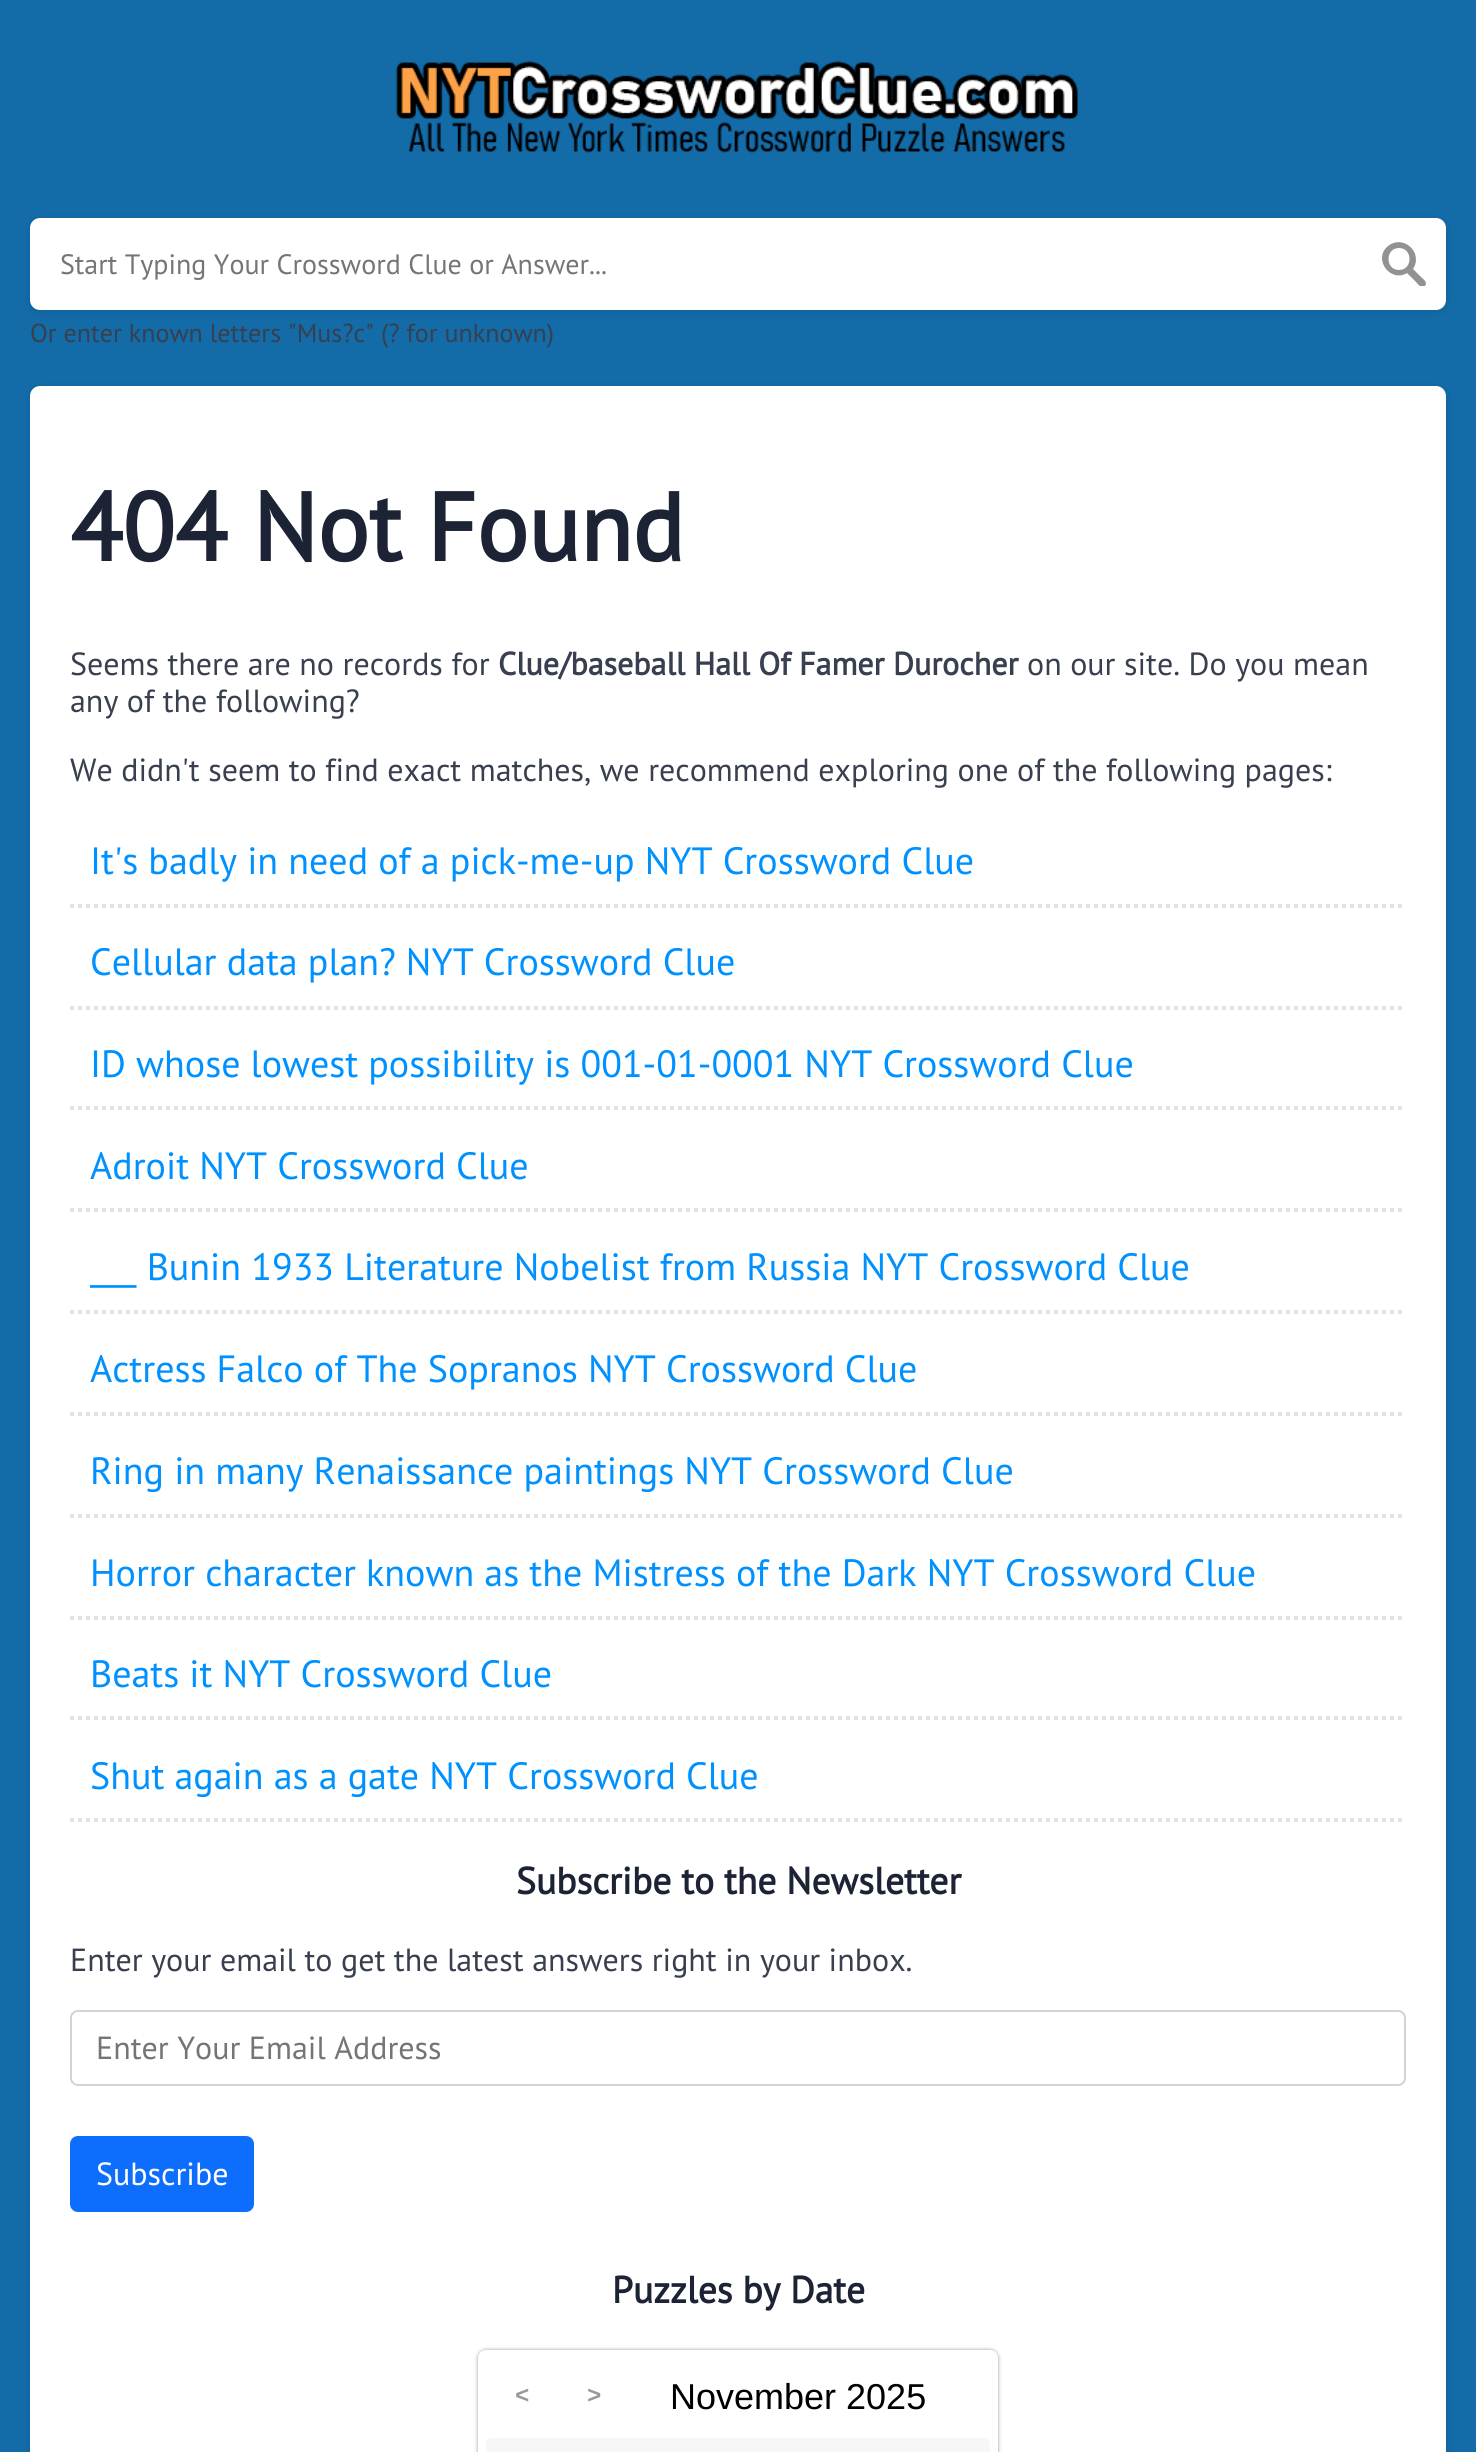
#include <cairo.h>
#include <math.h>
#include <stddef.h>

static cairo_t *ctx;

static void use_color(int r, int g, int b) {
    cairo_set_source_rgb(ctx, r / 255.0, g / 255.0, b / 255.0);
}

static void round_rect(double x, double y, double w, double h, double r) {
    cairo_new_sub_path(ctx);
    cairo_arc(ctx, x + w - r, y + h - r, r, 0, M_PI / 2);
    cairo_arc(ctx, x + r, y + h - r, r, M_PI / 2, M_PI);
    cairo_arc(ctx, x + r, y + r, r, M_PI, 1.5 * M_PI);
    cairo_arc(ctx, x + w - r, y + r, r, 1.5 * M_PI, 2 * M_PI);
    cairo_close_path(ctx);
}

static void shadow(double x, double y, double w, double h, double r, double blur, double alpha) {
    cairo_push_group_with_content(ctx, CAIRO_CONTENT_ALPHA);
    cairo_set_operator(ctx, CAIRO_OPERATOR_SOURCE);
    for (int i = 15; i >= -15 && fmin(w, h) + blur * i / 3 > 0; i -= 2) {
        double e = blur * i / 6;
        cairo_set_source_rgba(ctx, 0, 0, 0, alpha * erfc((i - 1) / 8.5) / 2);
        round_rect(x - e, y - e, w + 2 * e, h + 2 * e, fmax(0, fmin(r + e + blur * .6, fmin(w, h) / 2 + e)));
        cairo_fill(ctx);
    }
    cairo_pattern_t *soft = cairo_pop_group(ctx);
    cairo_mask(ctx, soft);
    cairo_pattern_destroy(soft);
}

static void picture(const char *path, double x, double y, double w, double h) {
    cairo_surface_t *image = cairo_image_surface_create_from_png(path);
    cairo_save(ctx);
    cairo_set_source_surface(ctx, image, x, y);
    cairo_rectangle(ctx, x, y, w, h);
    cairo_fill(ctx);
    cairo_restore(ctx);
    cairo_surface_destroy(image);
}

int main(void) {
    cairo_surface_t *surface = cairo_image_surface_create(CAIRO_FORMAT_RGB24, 1476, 2452);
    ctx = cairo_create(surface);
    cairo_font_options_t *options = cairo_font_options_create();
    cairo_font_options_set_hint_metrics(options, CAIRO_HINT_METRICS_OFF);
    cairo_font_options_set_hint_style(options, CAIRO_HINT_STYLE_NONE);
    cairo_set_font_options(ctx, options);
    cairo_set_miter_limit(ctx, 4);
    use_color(19, 107, 168);
    cairo_paint(ctx);
    picture("img1.png", 395, 61, 683, 92);
    use_color(0, 0, 0);
    shadow(30, 220, 1416, 92, 10, 4, 0.1);
    use_color(255, 255, 255);
    round_rect(30, 218, 1416, 92, 10);
    cairo_fill(ctx);
    cairo_select_font_face(ctx, "PT Sans", CAIRO_FONT_SLANT_NORMAL, CAIRO_FONT_WEIGHT_NORMAL);
    cairo_set_font_size(ctx, 28);
    use_color(117, 117, 117);
    cairo_move_to(ctx, 60, 274);
    cairo_show_text(ctx, "Start Typing Your Crossword Clue or Answer...");
    cairo_save(ctx);
    cairo_rectangle(ctx, 1382, 242, 44, 44);
    cairo_clip(ctx);
    use_color(146, 146, 146);
    cairo_new_path(ctx);
    cairo_move_to(ctx, 1413, 269);
    cairo_curve_to(ctx, 1424, 252, 1402, 233, 1387, 247);
    cairo_curve_to(ctx, 1373, 260, 1391, 283, 1407, 273);
    cairo_line_to(ctx, 1416, 282);
    cairo_curve_to(ctx, 1418, 284, 1421, 289, 1425, 286);
    cairo_curve_to(ctx, 1428, 282, 1423, 279, 1421, 277);
    cairo_close_path(ctx);
    cairo_move_to(ctx, 1399, 270);
    cairo_curve_to(ctx, 1385, 270, 1385, 248, 1399, 248);
    cairo_curve_to(ctx, 1413, 248, 1413, 270, 1399, 270);
    cairo_close_path(ctx);
    cairo_fill(ctx);
    cairo_restore(ctx);
    cairo_set_font_size(ctx, 26);
    use_color(56, 63, 78);
    cairo_move_to(ctx, 30, 342);
    cairo_show_text(ctx, "Or enter known letters \"Mus?c\" (? for unknown)");
    use_color(0, 0, 0);
    shadow(30, 388, 1416, 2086, 10, 4, 0.1);
    use_color(255, 255, 255);
    round_rect(30, 386, 1416, 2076, 10);
    cairo_fill(ctx);
    cairo_select_font_face(ctx, "PT Sans", CAIRO_FONT_SLANT_NORMAL, CAIRO_FONT_WEIGHT_BOLD);
    cairo_set_font_size(ctx, 96);
    use_color(28, 35, 52);
    cairo_move_to(ctx, 70, 561);
    cairo_show_text(ctx, "404 Not Found");
    cairo_select_font_face(ctx, "PT Sans", CAIRO_FONT_SLANT_NORMAL, CAIRO_FONT_WEIGHT_NORMAL);
    cairo_set_font_size(ctx, 32);
    use_color(56, 63, 78);
    cairo_move_to(ctx, 70, 675);
    cairo_show_text(ctx, "Seems there are no records for");
    cairo_select_font_face(ctx, "PT Sans", CAIRO_FONT_SLANT_NORMAL, CAIRO_FONT_WEIGHT_BOLD);
    cairo_move_to(ctx, 498, 675);
    cairo_show_text(ctx, "Clue/baseball Hall Of Famer Durocher");
    cairo_select_font_face(ctx, "PT Sans", CAIRO_FONT_SLANT_NORMAL, CAIRO_FONT_WEIGHT_NORMAL);
    cairo_move_to(ctx, 1027, 675);
    cairo_show_text(ctx, "on our site. Do you mean");
    cairo_move_to(ctx, 70, 712);
    cairo_show_text(ctx, "any of the following?");
    cairo_move_to(ctx, 70, 781);
    cairo_show_text(ctx, "We didn't seem to find exact matches, we recommend exploring one of the following pages:");
    cairo_new_path(ctx);
    cairo_move_to(ctx, 70, 906);
    cairo_line_to(ctx, 1406, 906);
    use_color(226, 226, 226);
    cairo_set_line_width(ctx, 4);
    cairo_set_dash(ctx, (double[]){4, 4}, 2, 0);
    cairo_stroke(ctx);
    cairo_set_font_size(ctx, 38);
    use_color(0, 145, 255);
    cairo_move_to(ctx, 90, 874);
    cairo_show_text(ctx, "It's badly in need of a pick-me-up NYT Crossword Clue");
    cairo_new_path(ctx);
    cairo_move_to(ctx, 70, 1008);
    cairo_line_to(ctx, 1406, 1008);
    use_color(226, 226, 226);
    cairo_stroke(ctx);
    use_color(0, 145, 255);
    cairo_move_to(ctx, 90, 975);
    cairo_show_text(ctx, "Cellular data plan? NYT Crossword Clue");
    cairo_new_path(ctx);
    cairo_move_to(ctx, 70, 1108);
    cairo_line_to(ctx, 1406, 1108);
    use_color(226, 226, 226);
    cairo_stroke(ctx);
    use_color(0, 145, 255);
    cairo_move_to(ctx, 90, 1077);
    cairo_show_text(ctx, "ID whose lowest possibility is 001-01-0001 NYT Crossword Clue");
    cairo_new_path(ctx);
    cairo_move_to(ctx, 70, 1210);
    cairo_line_to(ctx, 1406, 1210);
    use_color(226, 226, 226);
    cairo_stroke(ctx);
    use_color(0, 145, 255);
    cairo_move_to(ctx, 90, 1179);
    cairo_show_text(ctx, "Adroit NYT Crossword Clue");
    cairo_new_path(ctx);
    cairo_move_to(ctx, 70, 1312);
    cairo_line_to(ctx, 1406, 1312);
    use_color(226, 226, 226);
    cairo_stroke(ctx);
    use_color(0, 145, 255);
    cairo_move_to(ctx, 90, 1280);
    cairo_show_text(ctx, "___ Bunin 1933 Literature Nobelist from Russia NYT Crossword Clue");
    cairo_new_path(ctx);
    cairo_move_to(ctx, 70, 1414);
    cairo_line_to(ctx, 1406, 1414);
    use_color(226, 226, 226);
    cairo_stroke(ctx);
    use_color(0, 145, 255);
    cairo_move_to(ctx, 90, 1382);
    cairo_show_text(ctx, "Actress Falco of The Sopranos NYT Crossword Clue");
    cairo_new_path(ctx);
    cairo_move_to(ctx, 70, 1516);
    cairo_line_to(ctx, 1406, 1516);
    use_color(226, 226, 226);
    cairo_stroke(ctx);
    use_color(0, 145, 255);
    cairo_move_to(ctx, 90, 1484);
    cairo_show_text(ctx, "Ring in many Renaissance paintings NYT Crossword Clue");
    cairo_new_path(ctx);
    cairo_move_to(ctx, 70, 1618);
    cairo_line_to(ctx, 1406, 1618);
    use_color(226, 226, 226);
    cairo_stroke(ctx);
    use_color(0, 145, 255);
    cairo_move_to(ctx, 90, 1586);
    cairo_show_text(ctx, "Horror character known as the Mistress of the Dark NYT Crossword Clue");
    cairo_new_path(ctx);
    cairo_move_to(ctx, 70, 1718);
    cairo_line_to(ctx, 1406, 1718);
    use_color(226, 226, 226);
    cairo_stroke(ctx);
    use_color(0, 145, 255);
    cairo_move_to(ctx, 90, 1687);
    cairo_show_text(ctx, "Beats it NYT Crossword Clue");
    cairo_new_path(ctx);
    cairo_move_to(ctx, 70, 1820);
    cairo_line_to(ctx, 1406, 1820);
    use_color(226, 226, 226);
    cairo_stroke(ctx);
    use_color(0, 145, 255);
    cairo_move_to(ctx, 90, 1789);
    cairo_show_text(ctx, "Shut again as a gate NYT Crossword Clue");
    cairo_select_font_face(ctx, "PT Sans", CAIRO_FONT_SLANT_NORMAL, CAIRO_FONT_WEIGHT_BOLD);
    cairo_set_font_size(ctx, 37.5);
    use_color(28, 35, 52);
    cairo_move_to(ctx, 516, 1894);
    cairo_show_text(ctx, "Subscribe to the Newsletter");
    cairo_select_font_face(ctx, "PT Sans", CAIRO_FONT_SLANT_NORMAL, CAIRO_FONT_WEIGHT_NORMAL);
    cairo_set_font_size(ctx, 32);
    use_color(56, 63, 78);
    cairo_move_to(ctx, 70, 1971);
    cairo_show_text(ctx, "Enter your email to get the latest answers right in your inbox.");
    round_rect(71, 2011, 1334, 74, 7);
    use_color(206, 212, 218);
    cairo_set_line_width(ctx, 2);
    cairo_set_dash(ctx, NULL, 0, 0);
    cairo_stroke(ctx);
    use_color(117, 117, 117);
    cairo_move_to(ctx, 96, 2059);
    cairo_show_text(ctx, "Enter Your Email Address");
    use_color(13, 110, 253);
    round_rect(71, 2137, 182, 74, 7);
    cairo_fill_preserve(ctx);
    cairo_stroke(ctx);
    use_color(255, 255, 255);
    cairo_move_to(ctx, 96, 2185);
    cairo_show_text(ctx, "Subscribe");
    cairo_select_font_face(ctx, "PT Sans", CAIRO_FONT_SLANT_NORMAL, CAIRO_FONT_WEIGHT_BOLD);
    cairo_set_font_size(ctx, 37.5);
    use_color(28, 35, 52);
    cairo_move_to(ctx, 612, 2303);
    cairo_show_text(ctx, "Puzzles by Date");
    use_color(0, 0, 0);
    shadow(478, 2350, 520, 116, 8, 2, 0.4);
    use_color(255, 255, 255);
    round_rect(478, 2350, 520, 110, 8);
    cairo_fill(ctx);
    cairo_select_font_face(ctx, "Liberation Mono", CAIRO_FONT_SLANT_NORMAL, CAIRO_FONT_WEIGHT_BOLD);
    cairo_set_font_size(ctx, 24);
    use_color(153, 153, 153);
    cairo_move_to(ctx, 515, 2403);
    cairo_show_text(ctx, "<");
    cairo_move_to(ctx, 587, 2403);
    cairo_show_text(ctx, ">");
    cairo_select_font_face(ctx, "Liberation Sans", CAIRO_FONT_SLANT_NORMAL, CAIRO_FONT_WEIGHT_NORMAL);
    cairo_set_font_size(ctx, 36);
    use_color(0, 0, 0);
    cairo_move_to(ctx, 670, 2409);
    cairo_show_text(ctx, "November 2025");
    use_color(246, 247, 248);
    round_rect(486, 2438, 504, 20, 6);
    cairo_fill(ctx);
    cairo_surface_write_to_png(surface, "result.png");
    cairo_font_options_destroy(options);
    cairo_destroy(ctx);
    cairo_surface_destroy(surface);
    return 0;
}
